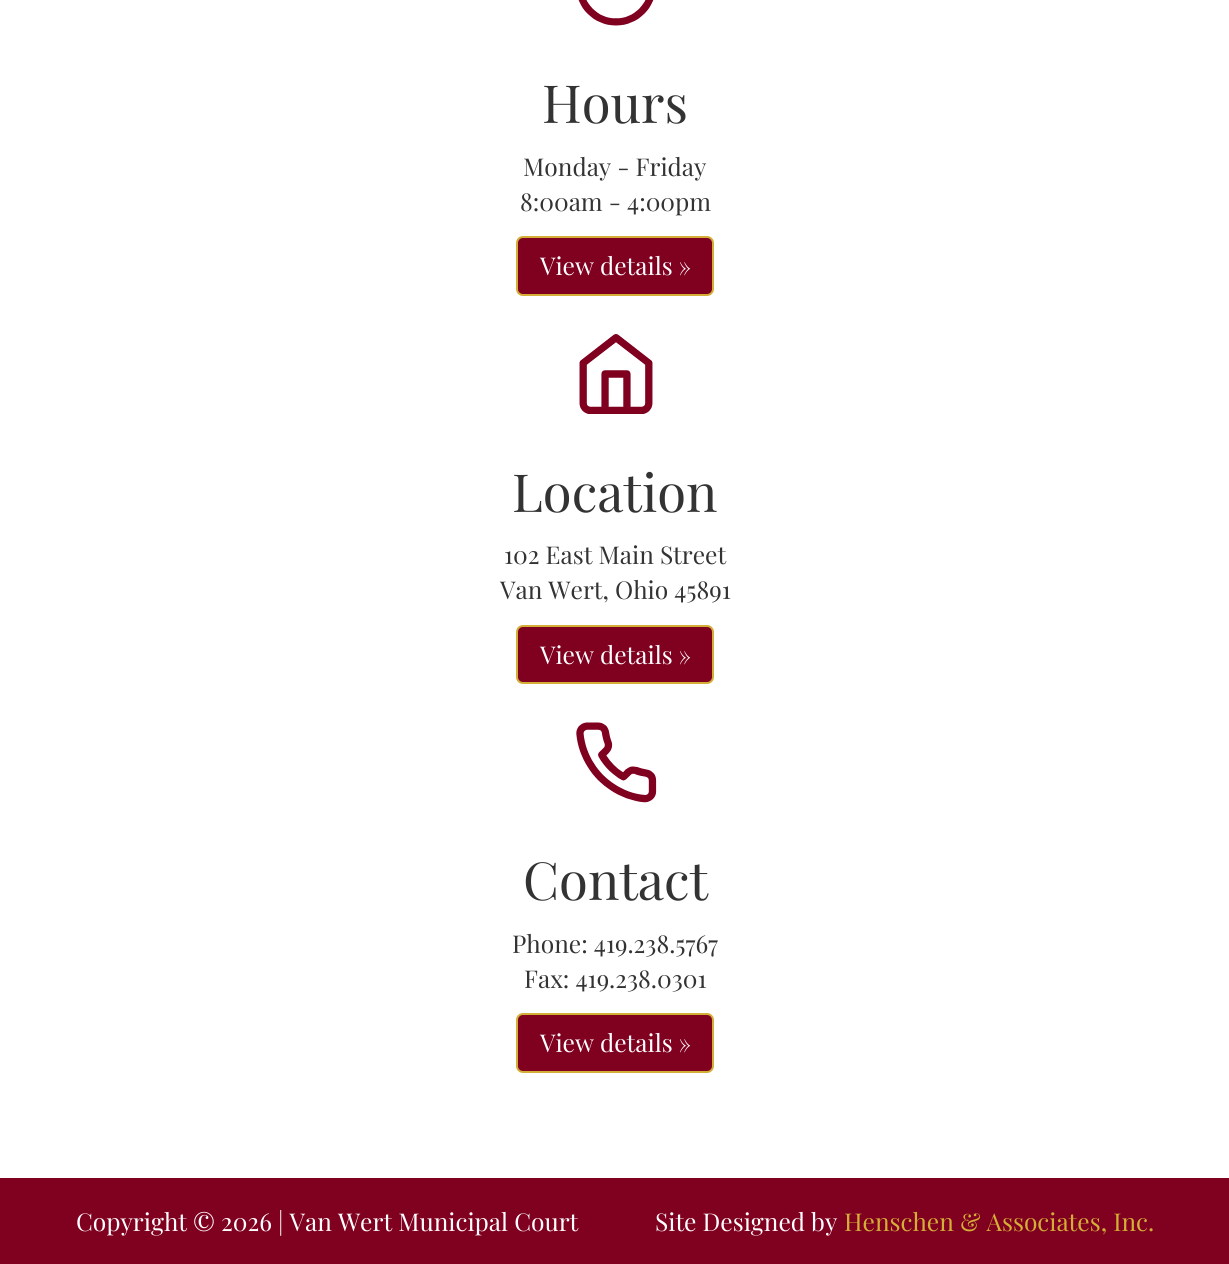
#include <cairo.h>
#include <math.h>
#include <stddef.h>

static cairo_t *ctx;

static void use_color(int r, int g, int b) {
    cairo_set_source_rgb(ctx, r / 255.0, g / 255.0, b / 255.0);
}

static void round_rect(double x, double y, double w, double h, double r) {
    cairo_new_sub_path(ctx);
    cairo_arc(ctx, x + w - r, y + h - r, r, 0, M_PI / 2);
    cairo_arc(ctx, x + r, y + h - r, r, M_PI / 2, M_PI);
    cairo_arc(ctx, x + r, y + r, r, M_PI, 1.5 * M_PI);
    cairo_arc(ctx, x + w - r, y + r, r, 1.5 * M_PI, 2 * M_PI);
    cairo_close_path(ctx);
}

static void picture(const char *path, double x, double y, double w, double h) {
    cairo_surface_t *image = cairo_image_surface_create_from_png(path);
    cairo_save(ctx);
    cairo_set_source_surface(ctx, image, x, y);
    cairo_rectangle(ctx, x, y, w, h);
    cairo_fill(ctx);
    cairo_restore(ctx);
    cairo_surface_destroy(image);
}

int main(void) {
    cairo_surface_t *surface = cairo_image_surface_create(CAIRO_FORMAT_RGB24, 1229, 1264);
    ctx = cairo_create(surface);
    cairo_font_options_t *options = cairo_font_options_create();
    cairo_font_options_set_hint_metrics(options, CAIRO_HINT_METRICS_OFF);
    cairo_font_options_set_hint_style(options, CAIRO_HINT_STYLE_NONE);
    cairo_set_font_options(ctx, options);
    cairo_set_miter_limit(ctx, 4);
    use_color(255, 255, 255);
    cairo_paint(ctx);
    picture("img1.png", 578, 0, 76, 26);
    cairo_select_font_face(ctx, "Playfair Display", CAIRO_FONT_SLANT_NORMAL, CAIRO_FONT_WEIGHT_NORMAL);
    cairo_set_font_size(ctx, 52.5);
    use_color(51, 51, 51);
    cairo_move_to(ctx, 542, 123);
    cairo_show_text(ctx, "Hours");
    cairo_set_font_size(ctx, 24.5);
    cairo_move_to(ctx, 523, 176);
    cairo_show_text(ctx, "Monday - Friday");
    cairo_move_to(ctx, 520, 211);
    cairo_show_text(ctx, "8:00am - 4:00pm");
    use_color(128, 0, 32);
    round_rect(517, 237, 196, 58, 6);
    cairo_fill_preserve(ctx);
    use_color(212, 175, 55);
    cairo_stroke(ctx);
    use_color(255, 255, 255);
    cairo_move_to(ctx, 540, 275);
    cairo_show_text(ctx, "View details »");
    picture("img2.png", 579, 334, 74, 80);
    cairo_set_font_size(ctx, 52.5);
    use_color(51, 51, 51);
    cairo_move_to(ctx, 512, 512);
    cairo_show_text(ctx, "Location");
    cairo_set_font_size(ctx, 24.5);
    cairo_move_to(ctx, 504, 564);
    cairo_show_text(ctx, "102 East Main Street");
    cairo_move_to(ctx, 500, 599);
    cairo_show_text(ctx, "Van Wert, Ohio 45891");
    use_color(128, 0, 32);
    round_rect(517, 626, 196, 57, 6);
    cairo_fill_preserve(ctx);
    use_color(212, 175, 55);
    cairo_stroke(ctx);
    use_color(255, 255, 255);
    cairo_move_to(ctx, 540, 664);
    cairo_show_text(ctx, "View details »");
    picture("img3.png", 576, 722, 81, 81);
    cairo_set_font_size(ctx, 52.5);
    use_color(51, 51, 51);
    cairo_move_to(ctx, 523, 900);
    cairo_show_text(ctx, "Contact");
    cairo_set_font_size(ctx, 24.5);
    cairo_move_to(ctx, 512, 953);
    cairo_show_text(ctx, "Phone: 419.238.5767");
    cairo_move_to(ctx, 524, 988);
    cairo_show_text(ctx, "Fax: 419.238.0301");
    use_color(128, 0, 32);
    round_rect(517, 1014, 196, 58, 6);
    cairo_fill_preserve(ctx);
    use_color(212, 175, 55);
    cairo_stroke(ctx);
    use_color(255, 255, 255);
    cairo_move_to(ctx, 540, 1052);
    cairo_show_text(ctx, "View details »");
    use_color(128, 0, 32);
    cairo_rectangle(ctx, 0, 1178, 1229, 86);
    cairo_fill(ctx);
    use_color(255, 255, 255);
    cairo_move_to(ctx, 76, 1231);
    cairo_show_text(ctx, "Copyright © 2026 | Van Wert Municipal Court");
    cairo_move_to(ctx, 655, 1231);
    cairo_show_text(ctx, "Site Designed by");
    use_color(212, 175, 55);
    cairo_move_to(ctx, 844, 1231);
    cairo_show_text(ctx, "Henschen & Associates, Inc.");
    cairo_surface_write_to_png(surface, "result.png");
    cairo_font_options_destroy(options);
    cairo_destroy(ctx);
    cairo_surface_destroy(surface);
    return 0;
}
